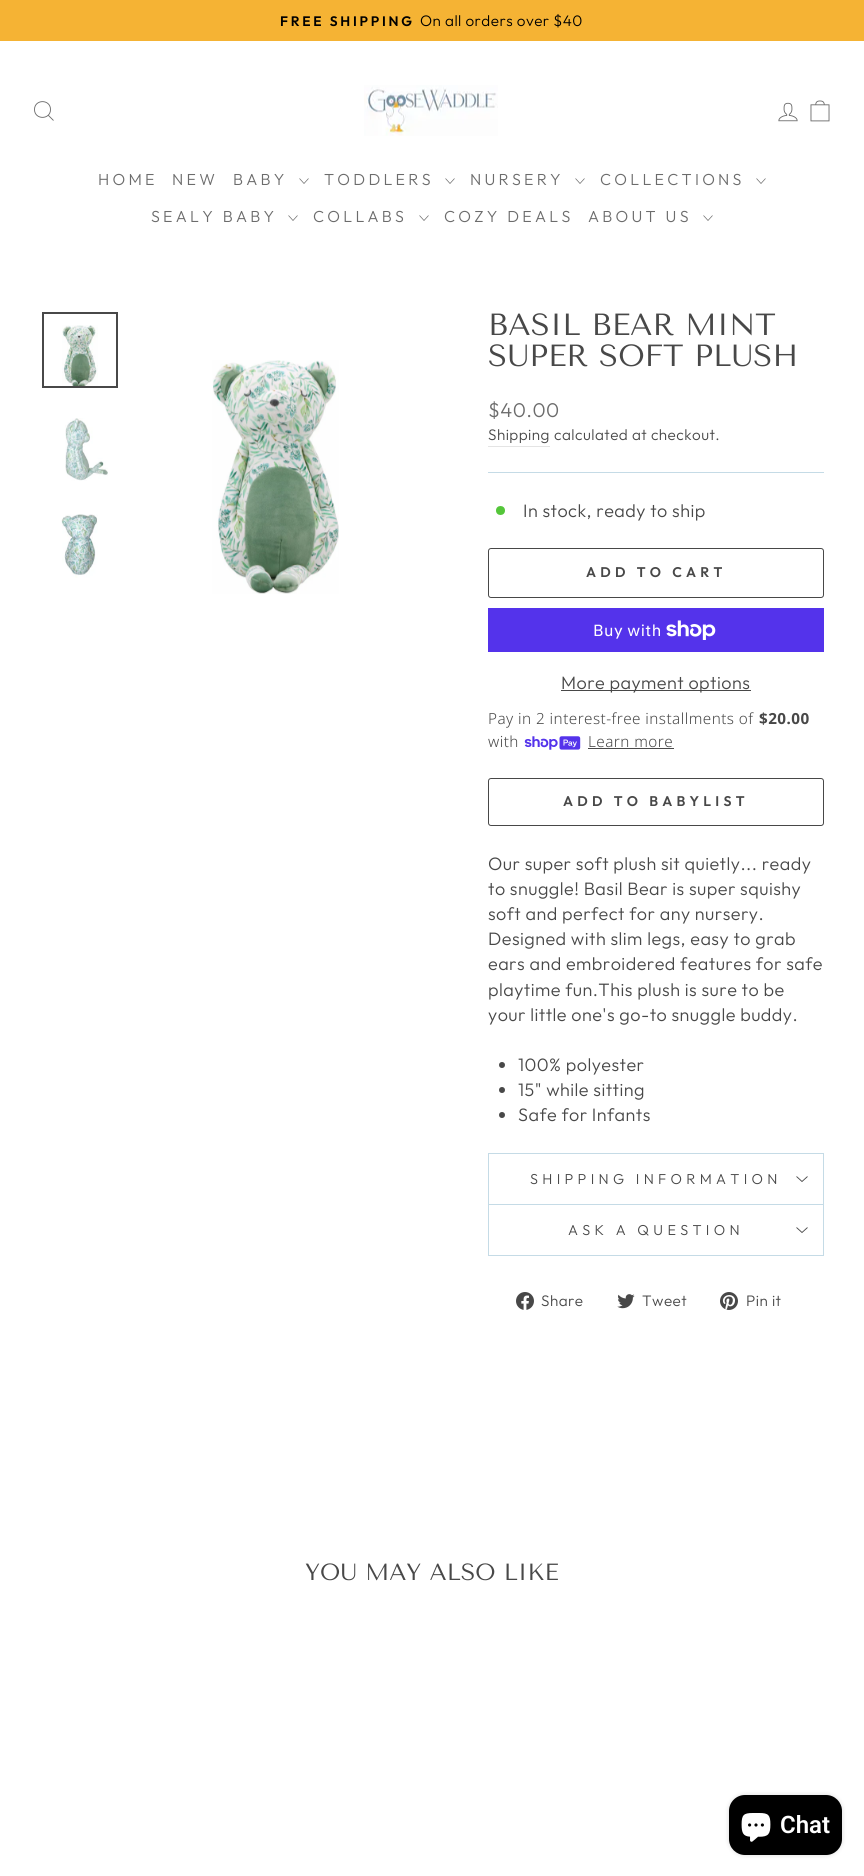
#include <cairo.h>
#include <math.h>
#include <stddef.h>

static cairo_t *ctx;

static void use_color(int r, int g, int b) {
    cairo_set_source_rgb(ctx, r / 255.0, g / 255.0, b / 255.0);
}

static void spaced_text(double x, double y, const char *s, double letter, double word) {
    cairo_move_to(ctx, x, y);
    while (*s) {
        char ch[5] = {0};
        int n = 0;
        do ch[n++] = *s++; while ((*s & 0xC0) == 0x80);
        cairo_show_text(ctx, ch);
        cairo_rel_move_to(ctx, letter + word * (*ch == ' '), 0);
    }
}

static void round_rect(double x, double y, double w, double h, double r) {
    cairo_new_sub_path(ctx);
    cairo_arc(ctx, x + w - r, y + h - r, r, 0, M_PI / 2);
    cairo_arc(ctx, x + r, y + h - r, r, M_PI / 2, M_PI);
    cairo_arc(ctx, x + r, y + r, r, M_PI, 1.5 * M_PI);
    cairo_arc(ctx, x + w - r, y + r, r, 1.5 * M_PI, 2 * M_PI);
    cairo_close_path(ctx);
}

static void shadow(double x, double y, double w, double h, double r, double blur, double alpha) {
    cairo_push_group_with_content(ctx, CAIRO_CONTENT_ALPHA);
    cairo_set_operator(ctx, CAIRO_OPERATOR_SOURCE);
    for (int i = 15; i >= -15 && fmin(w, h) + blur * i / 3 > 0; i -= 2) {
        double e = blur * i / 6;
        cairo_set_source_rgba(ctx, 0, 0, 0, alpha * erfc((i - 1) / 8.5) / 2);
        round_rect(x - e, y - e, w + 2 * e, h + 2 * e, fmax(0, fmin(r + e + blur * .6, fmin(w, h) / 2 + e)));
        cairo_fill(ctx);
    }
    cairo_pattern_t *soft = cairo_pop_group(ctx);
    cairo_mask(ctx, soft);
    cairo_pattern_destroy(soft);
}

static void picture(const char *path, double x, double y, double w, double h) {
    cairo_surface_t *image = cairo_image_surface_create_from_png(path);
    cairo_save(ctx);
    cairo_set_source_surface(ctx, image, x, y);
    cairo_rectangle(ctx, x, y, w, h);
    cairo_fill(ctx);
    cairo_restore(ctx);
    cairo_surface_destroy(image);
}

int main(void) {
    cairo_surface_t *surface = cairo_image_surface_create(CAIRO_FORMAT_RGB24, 864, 1876);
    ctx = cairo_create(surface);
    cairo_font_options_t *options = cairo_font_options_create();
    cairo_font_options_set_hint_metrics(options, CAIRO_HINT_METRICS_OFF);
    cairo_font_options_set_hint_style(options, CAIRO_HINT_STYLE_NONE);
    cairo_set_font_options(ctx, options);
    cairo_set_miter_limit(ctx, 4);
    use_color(255, 255, 255);
    cairo_paint(ctx);
    use_color(245, 179, 52);
    cairo_rectangle(ctx, 0, 0, 864, 41);
    cairo_fill(ctx);
    cairo_select_font_face(ctx, "Outfit SemiBold", CAIRO_FONT_SLANT_NORMAL, CAIRO_FONT_WEIGHT_NORMAL);
    cairo_set_font_size(ctx, 13.75);
    use_color(0, 0, 0);
    spaced_text(280, 26, "FREE SHIPPING", 2.75, 0);
    cairo_select_font_face(ctx, "Outfit Light", CAIRO_FONT_SLANT_NORMAL, CAIRO_FONT_WEIGHT_NORMAL);
    cairo_set_font_size(ctx, 15.25);
    spaced_text(420, 26, "On all orders over $40", 0.45, 0);
    cairo_new_path(ctx);
    cairo_move_to(ctx, 50.5, 109.5);
    cairo_curve_to(ctx, 50.5, 120, 34.5, 120, 34.5, 109.5);
    cairo_curve_to(ctx, 34.5, 99, 50.5, 99, 50.5, 109.5);
    cairo_close_path(ctx);
    cairo_move_to(ctx, 53.5, 120.5);
    cairo_line_to(ctx, 48.5, 115.5);
    use_color(108, 108, 108);
    cairo_set_line_width(ctx, 0.9);
    cairo_stroke(ctx);
    picture("img1.png", 364, 85, 134, 51);
    picture("img2.png", 778, 102, 20, 20);
    picture("img3.png", 810, 100, 20, 22);
    cairo_set_font_size(ctx, 16);
    spaced_text(98, 185, "HOME", 3.25, 0);
    spaced_text(172, 185, "NEW", 3.25, 0);
    spaced_text(233, 185, "BABY", 3.25, 0);
    cairo_new_path(ctx);
    cairo_move_to(ctx, 299.5, 178.5);
    cairo_line_to(ctx, 304, 183.5);
    cairo_line_to(ctx, 308.5, 178.5);
    cairo_set_line_width(ctx, 0.7);
    cairo_stroke(ctx);
    spaced_text(324, 185, "TODDLERS", 3.25, 0);
    cairo_new_path(ctx);
    cairo_move_to(ctx, 445.5, 178.5);
    cairo_line_to(ctx, 450, 183.5);
    cairo_line_to(ctx, 454.5, 178.5);
    cairo_stroke(ctx);
    spaced_text(470, 185, "NURSERY", 3.25, 0);
    cairo_new_path(ctx);
    cairo_move_to(ctx, 575.5, 178.5);
    cairo_line_to(ctx, 580, 183.5);
    cairo_line_to(ctx, 584.5, 178.5);
    cairo_stroke(ctx);
    spaced_text(600, 185, "COLLECTIONS", 3.25, 0);
    cairo_new_path(ctx);
    cairo_move_to(ctx, 756.5, 178.5);
    cairo_line_to(ctx, 761, 183.5);
    cairo_line_to(ctx, 765.5, 178.5);
    cairo_stroke(ctx);
    spaced_text(151, 222, "SEALY BABY", 3.25, 0);
    cairo_new_path(ctx);
    cairo_move_to(ctx, 288.5, 215.5);
    cairo_line_to(ctx, 293, 220.5);
    cairo_line_to(ctx, 297.5, 215.5);
    cairo_stroke(ctx);
    spaced_text(313, 222, "COLLABS", 3.25, 0);
    cairo_new_path(ctx);
    cairo_move_to(ctx, 419.5, 215.5);
    cairo_line_to(ctx, 424, 220.5);
    cairo_line_to(ctx, 428.5, 215.5);
    cairo_stroke(ctx);
    spaced_text(444, 222, "COZY DEALS", 3.25, 0);
    spaced_text(588, 222, "ABOUT US", 3.25, 0);
    cairo_new_path(ctx);
    cairo_move_to(ctx, 703.5, 215.5);
    cairo_line_to(ctx, 708, 220.5);
    cairo_line_to(ctx, 712.5, 215.5);
    cairo_stroke(ctx);
    picture("img4.png", 62, 325, 36, 61);
    cairo_rectangle(ctx, 43, 313, 74, 74);
    use_color(72, 72, 72);
    cairo_set_line_width(ctx, 2);
    cairo_stroke(ctx);
    picture("img5.png", 65, 418, 43, 63);
    picture("img6.png", 61, 514, 37, 64);
    picture("img7.png", 212, 360, 127, 234);
    cairo_select_font_face(ctx, "Tenor Sans", CAIRO_FONT_SLANT_NORMAL, CAIRO_FONT_WEIGHT_NORMAL);
    cairo_set_font_size(ctx, 30.6);
    cairo_move_to(ctx, 488, 335);
    cairo_show_text(ctx, "BASIL BEAR MINT");
    cairo_move_to(ctx, 488, 366);
    cairo_show_text(ctx, "SUPER SOFT PLUSH");
    cairo_select_font_face(ctx, "Outfit Light", CAIRO_FONT_SLANT_NORMAL, CAIRO_FONT_WEIGHT_NORMAL);
    cairo_set_font_size(ctx, 20);
    use_color(108, 108, 108);
    spaced_text(488, 417, "$40.00", 0.45, 0);
    use_color(228, 228, 228);
    cairo_rectangle(ctx, 488, 446, 62, 1);
    cairo_fill(ctx);
    cairo_set_font_size(ctx, 15.25);
    use_color(72, 72, 72);
    spaced_text(488, 440, "Shipping", 0.45, 0);
    spaced_text(554, 440, "calculated at checkout.", 0.45, 0);
    use_color(197, 219, 230);
    cairo_rectangle(ctx, 488, 472, 336, 1);
    cairo_fill(ctx);
    use_color(84, 198, 58);
    cairo_arc(ctx, 500.5, 510.5, 4.5, 0, 2 * M_PI);
    cairo_fill(ctx);
    cairo_set_font_size(ctx, 18);
    use_color(72, 72, 72);
    spaced_text(523, 517, "In stock, ready to ship", 0.45, 0);
    round_rect(488.5, 548.5, 335, 49, 2.5);
    cairo_set_line_width(ctx, 1);
    cairo_stroke(ctx);
    cairo_select_font_face(ctx, "Outfit SemiBold", CAIRO_FONT_SLANT_NORMAL, CAIRO_FONT_WEIGHT_NORMAL);
    cairo_set_font_size(ctx, 14);
    spaced_text(586, 577, "ADD TO CART", 4.25, 0);
    use_color(84, 51, 235);
    cairo_rectangle(ctx, 488, 608, 336, 44);
    cairo_fill(ctx);
    cairo_select_font_face(ctx, "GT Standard", CAIRO_FONT_SLANT_NORMAL, CAIRO_FONT_WEIGHT_NORMAL);
    cairo_set_font_size(ctx, 16);
    use_color(255, 255, 255);
    spaced_text(593, 636, "Buy with", 0.45, 0);
    picture("img8.png", 666, 620, 50, 20);
    use_color(72, 72, 72);
    cairo_rectangle(ctx, 561, 690, 190, 1);
    cairo_fill(ctx);
    cairo_select_font_face(ctx, "Outfit Light", CAIRO_FONT_SLANT_NORMAL, CAIRO_FONT_WEIGHT_NORMAL);
    cairo_set_font_size(ctx, 18);
    spaced_text(561, 689, "More payment options", 0.45, 0);
    cairo_select_font_face(ctx, "Noto Sans Light", CAIRO_FONT_SLANT_NORMAL, CAIRO_FONT_WEIGHT_NORMAL);
    cairo_set_font_size(ctx, 15.25);
    spaced_text(488, 724, "Pay in 2 interest-free installments of", 0.45, 0);
    cairo_select_font_face(ctx, "Noto Sans", CAIRO_FONT_SLANT_NORMAL, CAIRO_FONT_WEIGHT_BOLD);
    spaced_text(759, 724, "$20.00", 0.45, 0);
    cairo_select_font_face(ctx, "Noto Sans Light", CAIRO_FONT_SLANT_NORMAL, CAIRO_FONT_WEIGHT_NORMAL);
    spaced_text(488, 747, "with", 0.45, 0);
    picture("img9.png", 524, 736, 57, 14);
    spaced_text(588, 747, "Learn more", 0.45, 0);
    cairo_rectangle(ctx, 588, 748, 86, 1);
    cairo_fill(ctx);
    round_rect(488.5, 778.5, 335, 47, 2.5);
    cairo_stroke(ctx);
    cairo_select_font_face(ctx, "Outfit SemiBold", CAIRO_FONT_SLANT_NORMAL, CAIRO_FONT_WEIGHT_NORMAL);
    cairo_set_font_size(ctx, 14);
    spaced_text(563, 806, "ADD TO BABYLIST", 4.25, 0);
    cairo_select_font_face(ctx, "Outfit Light", CAIRO_FONT_SLANT_NORMAL, CAIRO_FONT_WEIGHT_NORMAL);
    cairo_set_font_size(ctx, 18);
    spaced_text(488, 870, "Our super soft plush sit quietly... ready", 0.45, 0);
    spaced_text(488, 895, "to snuggle! Basil Bear is super squishy", 0.45, 0);
    spaced_text(488, 920, "soft and perfect for any nursery.", 0.45, 0);
    spaced_text(488, 945, "Designed with slim legs, easy to grab", 0.45, 0);
    spaced_text(488, 970, "ears and embroidered features for safe", 0.45, 0);
    spaced_text(488, 996, "playtime fun.This plush is sure to be", 0.45, 0);
    spaced_text(488, 1021, "your little one's go-to snuggle buddy.", 0.45, 0);
    cairo_new_path(ctx);
    cairo_arc(ctx, 502, 1065, 3, 0, 2 * M_PI);
    cairo_fill(ctx);
    spaced_text(518, 1071, "100% polyester", 0.45, 0);
    cairo_new_path(ctx);
    cairo_arc(ctx, 502, 1090, 3, 0, 2 * M_PI);
    cairo_fill(ctx);
    spaced_text(518, 1096, "15\" while sitting", 0.45, 0);
    cairo_new_path(ctx);
    cairo_arc(ctx, 502, 1115, 3, 0, 2 * M_PI);
    cairo_fill(ctx);
    spaced_text(518, 1121, "Safe for Infants", 0.45, 0);
    use_color(197, 219, 230);
    cairo_rectangle(ctx, 488, 1204, 336, 1);
    cairo_fill(ctx);
    cairo_rectangle(ctx, 488, 1153, 336, 1);
    cairo_fill(ctx);
    cairo_rectangle(ctx, 823, 1153, 1, 51);
    cairo_fill(ctx);
    cairo_rectangle(ctx, 488, 1153, 1, 51);
    cairo_fill(ctx);
    cairo_set_font_size(ctx, 14.4);
    use_color(72, 72, 72);
    spaced_text(530, 1184, "SHIPPING INFORMATION", 4.3, 0);
    cairo_new_path(ctx);
    cairo_move_to(ctx, 796.5, 1176.5);
    cairo_line_to(ctx, 802, 1181.5);
    cairo_line_to(ctx, 807.5, 1176.5);
    cairo_set_line_width(ctx, 0.9);
    cairo_stroke(ctx);
    use_color(197, 219, 230);
    cairo_rectangle(ctx, 488, 1255, 336, 1);
    cairo_fill(ctx);
    cairo_rectangle(ctx, 823, 1205, 1, 50);
    cairo_fill(ctx);
    cairo_rectangle(ctx, 488, 1205, 1, 50);
    cairo_fill(ctx);
    use_color(72, 72, 72);
    spaced_text(568, 1235, "ASK A QUESTION", 4.3, 0);
    cairo_new_path(ctx);
    cairo_move_to(ctx, 796.5, 1227.5);
    cairo_line_to(ctx, 802, 1232.5);
    cairo_line_to(ctx, 807.5, 1227.5);
    cairo_stroke(ctx);
    picture("img10.png", 516, 1292, 18, 18);
    cairo_set_font_size(ctx, 15.25);
    spaced_text(541, 1306, "Share", 0.45, 0);
    picture("img11.png", 617, 1294, 18, 15);
    spaced_text(642, 1306, "Tweet", 0.45, 0);
    picture("img12.png", 720, 1292, 18, 18);
    spaced_text(746, 1306, "Pin it", 0.45, 0);
    cairo_select_font_face(ctx, "Tenor Sans", CAIRO_FONT_SLANT_NORMAL, CAIRO_FONT_WEIGHT_NORMAL);
    cairo_set_font_size(ctx, 23.4);
    cairo_move_to(ctx, 305, 1580);
    cairo_show_text(ctx, "YOU MAY ALSO LIKE");
    use_color(0, 0, 0);
    shadow(729, 1795, 113, 60, 16, 2.5, 0.15);
    use_color(0, 0, 0);
    round_rect(729, 1795, 113, 60, 16);
    cairo_fill(ctx);
    picture("img13.png", 741, 1813, 30, 29);
    cairo_select_font_face(ctx, "Roboto SemiBold", CAIRO_FONT_SLANT_NORMAL, CAIRO_FONT_WEIGHT_NORMAL);
    cairo_set_font_size(ctx, 24);
    use_color(255, 255, 255);
    cairo_move_to(ctx, 780, 1833);
    cairo_show_text(ctx, "Chat");
    cairo_surface_write_to_png(surface, "result.png");
    cairo_font_options_destroy(options);
    cairo_destroy(ctx);
    cairo_surface_destroy(surface);
    return 0;
}
